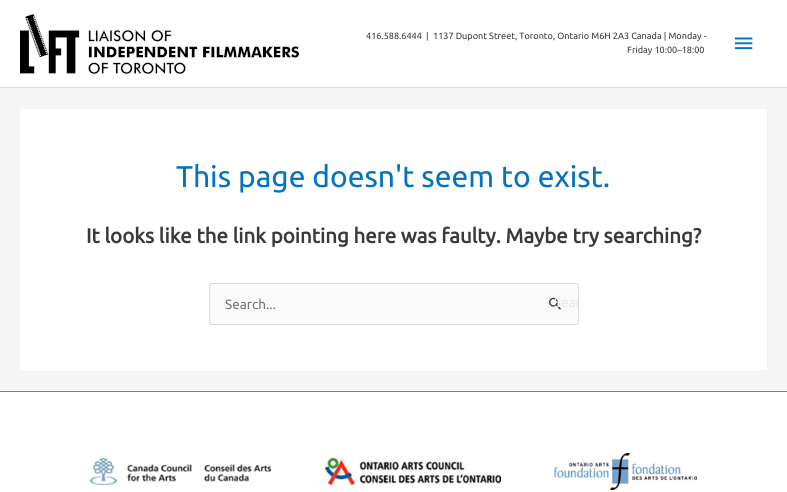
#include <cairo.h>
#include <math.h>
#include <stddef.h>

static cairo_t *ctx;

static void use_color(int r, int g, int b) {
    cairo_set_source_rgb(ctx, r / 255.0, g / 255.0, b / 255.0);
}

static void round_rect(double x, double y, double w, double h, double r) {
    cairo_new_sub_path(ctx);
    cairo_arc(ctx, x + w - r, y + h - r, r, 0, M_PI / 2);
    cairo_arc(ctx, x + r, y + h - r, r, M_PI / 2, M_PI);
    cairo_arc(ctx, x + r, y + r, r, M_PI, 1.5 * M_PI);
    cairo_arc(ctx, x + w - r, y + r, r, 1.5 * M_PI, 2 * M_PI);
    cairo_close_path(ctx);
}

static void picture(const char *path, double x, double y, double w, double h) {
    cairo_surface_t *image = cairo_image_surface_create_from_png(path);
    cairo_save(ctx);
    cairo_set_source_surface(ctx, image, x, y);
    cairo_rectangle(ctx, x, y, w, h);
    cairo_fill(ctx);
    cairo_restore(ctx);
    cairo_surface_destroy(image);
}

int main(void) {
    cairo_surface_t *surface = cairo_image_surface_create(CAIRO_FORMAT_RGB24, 787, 492);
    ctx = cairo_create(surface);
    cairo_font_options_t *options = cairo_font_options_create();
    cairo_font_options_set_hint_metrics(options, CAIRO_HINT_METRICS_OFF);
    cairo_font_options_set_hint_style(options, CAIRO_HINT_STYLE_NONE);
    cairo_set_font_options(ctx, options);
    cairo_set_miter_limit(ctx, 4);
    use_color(245, 245, 245);
    cairo_paint(ctx);
    use_color(255, 255, 255);
    cairo_rectangle(ctx, 0, 0, 787, 87);
    cairo_fill(ctx);
    use_color(221, 221, 221);
    cairo_rectangle(ctx, 0, 87, 787, 1);
    cairo_fill(ctx);
    picture("img1.png", 20, 14, 279, 60);
    cairo_select_font_face(ctx, "Ubuntu", CAIRO_FONT_SLANT_NORMAL, CAIRO_FONT_WEIGHT_NORMAL);
    cairo_set_font_size(ctx, 9.1);
    use_color(58, 58, 58);
    cairo_move_to(ctx, 366, 39);
    cairo_show_text(ctx, "416.588.6444");
    cairo_move_to(ctx, 426, 39);
    cairo_show_text(ctx, "|");
    cairo_move_to(ctx, 433, 39);
    cairo_show_text(ctx, "1137 Dupont Street, Toronto, Ontario M6H 2A3 Canada | Monday -");
    cairo_move_to(ctx, 627, 53);
    cairo_show_text(ctx, "Friday 10:00–18:00");
    picture("img2.png", 734, 37, 19, 13);
    use_color(255, 255, 255);
    cairo_rectangle(ctx, 20, 109, 747, 261);
    cairo_fill(ctx);
    cairo_set_font_size(ctx, 30);
    use_color(2, 116, 190);
    cairo_move_to(ctx, 176, 187);
    cairo_show_text(ctx, "This page doesn't seem to exist.");
    cairo_select_font_face(ctx, "Ubuntu", CAIRO_FONT_SLANT_NORMAL, CAIRO_FONT_WEIGHT_BOLD);
    cairo_set_font_size(ctx, 20.5);
    use_color(58, 58, 58);
    cairo_move_to(ctx, 86, 243);
    cairo_show_text(ctx, "It looks like the link pointing here was faulty. Maybe try searching?");
    use_color(250, 250, 250);
    round_rect(209.5, 283.5, 369, 41, 1.5);
    cairo_fill_preserve(ctx);
    use_color(221, 221, 221);
    cairo_set_line_width(ctx, 1);
    cairo_stroke(ctx);
    picture("img3.png", 549, 297, 12, 13);
    cairo_select_font_face(ctx, "Ubuntu", CAIRO_FONT_SLANT_NORMAL, CAIRO_FONT_WEIGHT_NORMAL);
    cairo_set_font_size(ctx, 13.5);
    use_color(117, 117, 117);
    cairo_move_to(ctx, 225, 309);
    cairo_show_text(ctx, "Search...");
    cairo_save(ctx);
    round_rect(534, 283, 45, 39, 2);
    cairo_clip(ctx);
    use_color(232, 232, 232);
    cairo_move_to(ctx, 554, 307);
    cairo_show_text(ctx, "Sear");
    cairo_restore(ctx);
    use_color(122, 122, 122);
    cairo_rectangle(ctx, 0, 391, 787, 1);
    cairo_fill(ctx);
    use_color(255, 255, 255);
    cairo_rectangle(ctx, 0, 392, 787, 100);
    cairo_fill(ctx);
    picture("img4.png", 90, 458, 181, 27);
    picture("img5.png", 325, 458, 176, 27);
    picture("img6.png", 554, 453, 143, 37);
    cairo_surface_write_to_png(surface, "result.png");
    cairo_font_options_destroy(options);
    cairo_destroy(ctx);
    cairo_surface_destroy(surface);
    return 0;
}
